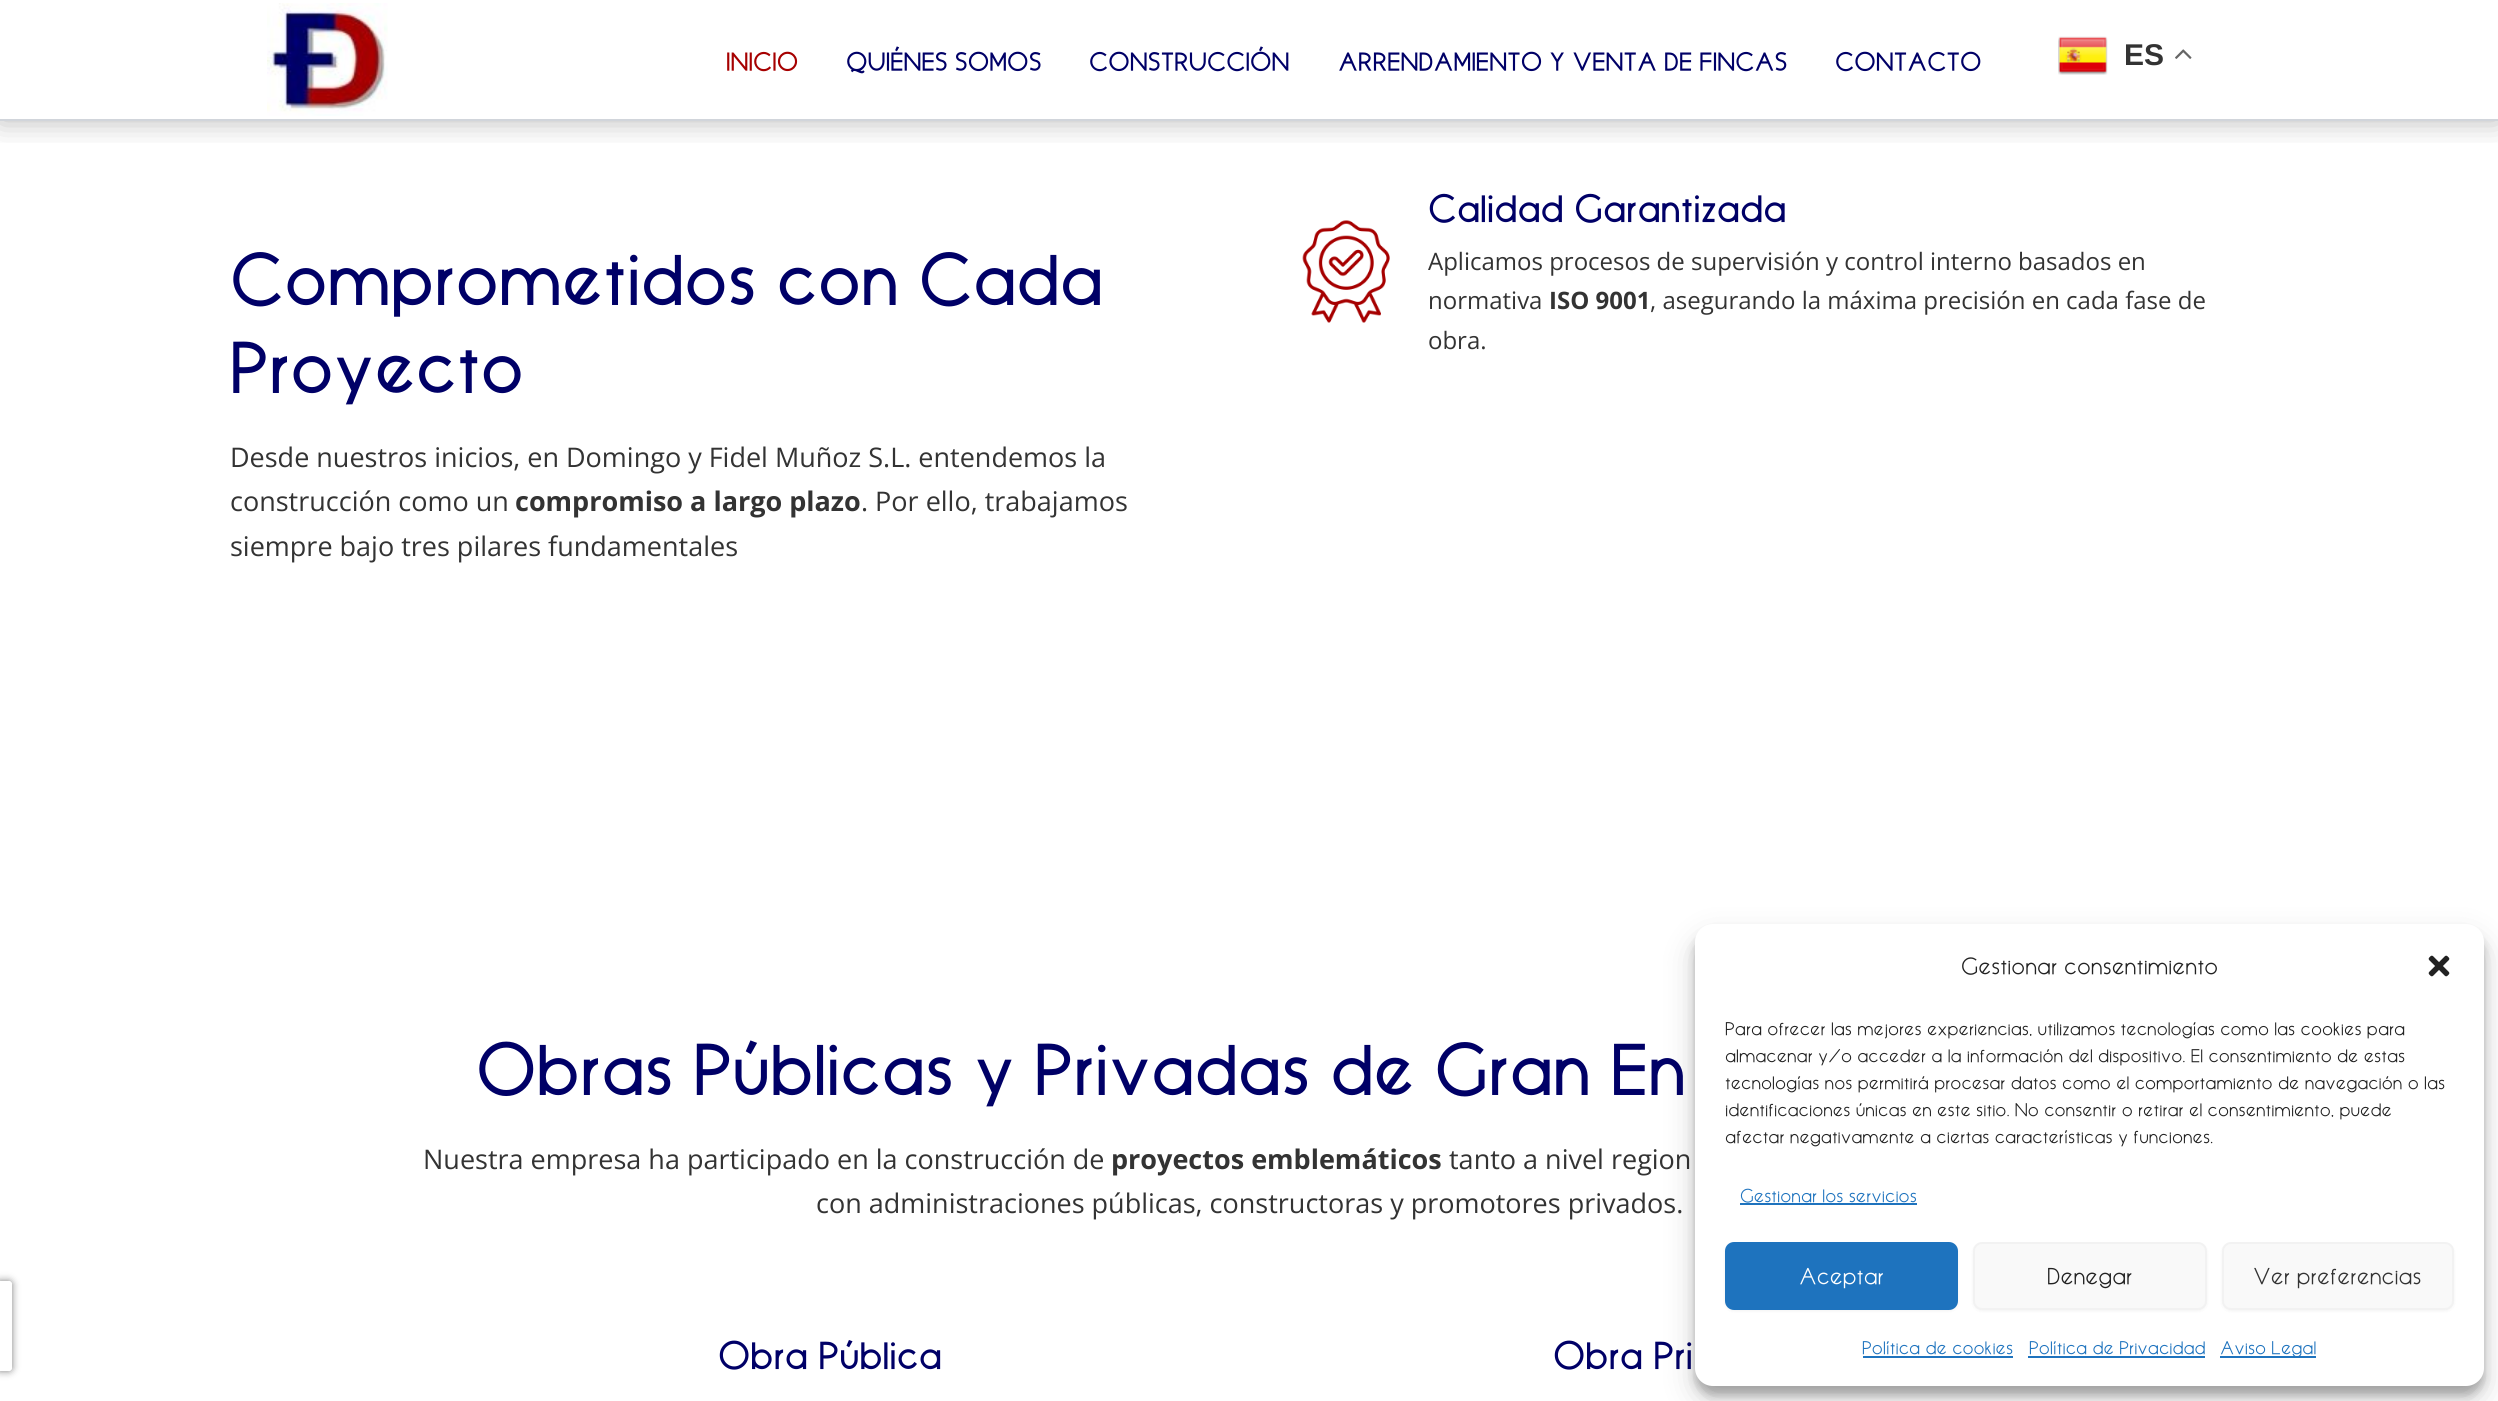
#include <cairo.h>
#include <math.h>
#include <stddef.h>

static cairo_t *ctx;

static void use_color(int r, int g, int b) {
    cairo_set_source_rgb(ctx, r / 255.0, g / 255.0, b / 255.0);
}

static void round_rect(double x, double y, double w, double h, double r) {
    cairo_new_sub_path(ctx);
    cairo_arc(ctx, x + w - r, y + h - r, r, 0, M_PI / 2);
    cairo_arc(ctx, x + r, y + h - r, r, M_PI / 2, M_PI);
    cairo_arc(ctx, x + r, y + r, r, M_PI, 1.5 * M_PI);
    cairo_arc(ctx, x + w - r, y + r, r, 1.5 * M_PI, 2 * M_PI);
    cairo_close_path(ctx);
}

static void shadow(double x, double y, double w, double h, double r, double blur, double alpha) {
    cairo_push_group_with_content(ctx, CAIRO_CONTENT_ALPHA);
    cairo_set_operator(ctx, CAIRO_OPERATOR_SOURCE);
    for (int i = 15; i >= -15 && fmin(w, h) + blur * i / 3 > 0; i -= 2) {
        double e = blur * i / 6;
        cairo_set_source_rgba(ctx, 0, 0, 0, alpha * erfc((i - 1) / 8.5) / 2);
        round_rect(x - e, y - e, w + 2 * e, h + 2 * e, fmax(0, fmin(r + e + blur * .6, fmin(w, h) / 2 + e)));
        cairo_fill(ctx);
    }
    cairo_pattern_t *soft = cairo_pop_group(ctx);
    cairo_mask(ctx, soft);
    cairo_pattern_destroy(soft);
}

static void picture(const char *path, double x, double y, double w, double h) {
    cairo_surface_t *image = cairo_image_surface_create_from_png(path);
    cairo_save(ctx);
    cairo_set_source_surface(ctx, image, x, y);
    cairo_rectangle(ctx, x, y, w, h);
    cairo_fill(ctx);
    cairo_restore(ctx);
    cairo_surface_destroy(image);
}

int main(void) {
    cairo_surface_t *surface = cairo_image_surface_create(CAIRO_FORMAT_RGB24, 2498, 1401);
    ctx = cairo_create(surface);
    cairo_font_options_t *options = cairo_font_options_create();
    cairo_font_options_set_hint_metrics(options, CAIRO_HINT_METRICS_OFF);
    cairo_font_options_set_hint_style(options, CAIRO_HINT_STYLE_NONE);
    cairo_set_font_options(ctx, options);
    cairo_set_miter_limit(ctx, 4);
    use_color(255, 255, 255);
    cairo_paint(ctx);
    cairo_save(ctx);
    cairo_rectangle(ctx, 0, 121, 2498, 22);
    cairo_clip(ctx);
    use_color(0, 0, 0);
    shadow(0, 0, 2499, 120, 0, 15, 0.3);
    cairo_restore(ctx);
    use_color(209, 213, 219);
    cairo_rectangle(ctx, 0, 119, 2498, 2);
    cairo_fill(ctx);
    picture("img1.png", 267, 3, 121, 113);
    cairo_select_font_face(ctx, "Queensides", CAIRO_FONT_SLANT_NORMAL, CAIRO_FONT_WEIGHT_BOLD);
    cairo_set_font_size(ctx, 24);
    use_color(166, 0, 0);
    cairo_move_to(ctx, 726, 70);
    cairo_show_text(ctx, "INICIO");
    use_color(0, 0, 103);
    cairo_move_to(ctx, 846, 70);
    cairo_show_text(ctx, "QUIÉNES SOMOS");
    cairo_move_to(ctx, 1089, 70);
    cairo_show_text(ctx, "CONSTRUCCIÓN");
    cairo_move_to(ctx, 1338, 70);
    cairo_show_text(ctx, "ARRENDAMIENTO Y VENTA DE FINCAS");
    cairo_move_to(ctx, 1835, 70);
    cairo_show_text(ctx, "CONTACTO");
    picture("img2.png", 2058, 36, 50, 39);
    cairo_select_font_face(ctx, "Liberation Sans", CAIRO_FONT_SLANT_NORMAL, CAIRO_FONT_WEIGHT_BOLD);
    cairo_set_font_size(ctx, 30);
    use_color(51, 51, 51);
    cairo_move_to(ctx, 2124, 65);
    cairo_show_text(ctx, "ES");
    picture("img3.png", 2175, 49, 17, 10);
    cairo_select_font_face(ctx, "Queensides", CAIRO_FONT_SLANT_NORMAL, CAIRO_FONT_WEIGHT_BOLD);
    cairo_set_font_size(ctx, 67.5);
    use_color(0, 0, 103);
    cairo_move_to(ctx, 230, 303);
    cairo_show_text(ctx, "Comprometidos con Cada");
    cairo_move_to(ctx, 230, 391);
    cairo_show_text(ctx, "Proyecto");
    cairo_select_font_face(ctx, "Open Sans", CAIRO_FONT_SLANT_NORMAL, CAIRO_FONT_WEIGHT_NORMAL);
    cairo_set_font_size(ctx, 27);
    use_color(51, 51, 51);
    cairo_move_to(ctx, 230, 467);
    cairo_show_text(ctx, "Desde nuestros inicios, en Domingo y Fidel Muñoz S.L. entendemos la");
    cairo_move_to(ctx, 230, 511);
    cairo_show_text(ctx, "construcción como un");
    cairo_select_font_face(ctx, "Open Sans", CAIRO_FONT_SLANT_NORMAL, CAIRO_FONT_WEIGHT_BOLD);
    cairo_move_to(ctx, 515, 511);
    cairo_show_text(ctx, "compromiso a largo plazo");
    cairo_select_font_face(ctx, "Open Sans", CAIRO_FONT_SLANT_NORMAL, CAIRO_FONT_WEIGHT_NORMAL);
    cairo_move_to(ctx, 861, 511);
    cairo_show_text(ctx, ". Por ello, trabajamos");
    cairo_move_to(ctx, 230, 556);
    cairo_show_text(ctx, "siempre bajo tres pilares fundamentales");
    picture("img4.png", 1302, 220, 88, 103);
    cairo_select_font_face(ctx, "Queensides", CAIRO_FONT_SLANT_NORMAL, CAIRO_FONT_WEIGHT_BOLD);
    cairo_set_font_size(ctx, 36);
    use_color(0, 0, 103);
    cairo_move_to(ctx, 1428, 221);
    cairo_show_text(ctx, "Calidad Garantizada");
    cairo_select_font_face(ctx, "Open Sans", CAIRO_FONT_SLANT_NORMAL, CAIRO_FONT_WEIGHT_NORMAL);
    cairo_set_font_size(ctx, 24);
    use_color(51, 51, 51);
    cairo_move_to(ctx, 1428, 270);
    cairo_show_text(ctx, "Aplicamos procesos de supervisión y control interno basados en");
    cairo_move_to(ctx, 1428, 309);
    cairo_show_text(ctx, "normativa");
    cairo_select_font_face(ctx, "Open Sans", CAIRO_FONT_SLANT_NORMAL, CAIRO_FONT_WEIGHT_BOLD);
    cairo_move_to(ctx, 1549, 309);
    cairo_show_text(ctx, "ISO 9001");
    cairo_select_font_face(ctx, "Open Sans", CAIRO_FONT_SLANT_NORMAL, CAIRO_FONT_WEIGHT_NORMAL);
    cairo_move_to(ctx, 1650, 309);
    cairo_show_text(ctx, ", asegurando la máxima precisión en cada fase de");
    cairo_move_to(ctx, 1428, 349);
    cairo_show_text(ctx, "obra.");
    cairo_select_font_face(ctx, "Queensides", CAIRO_FONT_SLANT_NORMAL, CAIRO_FONT_WEIGHT_BOLD);
    cairo_set_font_size(ctx, 67.5);
    use_color(0, 0, 103);
    cairo_move_to(ctx, 476, 1093);
    cairo_show_text(ctx, "Obras Públicas y Privadas de Gran En");
    cairo_select_font_face(ctx, "Open Sans", CAIRO_FONT_SLANT_NORMAL, CAIRO_FONT_WEIGHT_NORMAL);
    cairo_set_font_size(ctx, 27);
    use_color(51, 51, 51);
    cairo_move_to(ctx, 423, 1169);
    cairo_show_text(ctx, "Nuestra empresa ha participado en la construcción de");
    cairo_select_font_face(ctx, "Open Sans", CAIRO_FONT_SLANT_NORMAL, CAIRO_FONT_WEIGHT_BOLD);
    cairo_move_to(ctx, 1111, 1169);
    cairo_show_text(ctx, "proyectos emblemáticos");
    cairo_select_font_face(ctx, "Open Sans", CAIRO_FONT_SLANT_NORMAL, CAIRO_FONT_WEIGHT_NORMAL);
    cairo_move_to(ctx, 1449, 1169);
    cairo_show_text(ctx, "tanto a nivel region");
    cairo_move_to(ctx, 816, 1213);
    cairo_show_text(ctx, "con administraciones públicas, constructoras y promotores privados.");
    cairo_select_font_face(ctx, "Queensides", CAIRO_FONT_SLANT_NORMAL, CAIRO_FONT_WEIGHT_BOLD);
    cairo_set_font_size(ctx, 36);
    use_color(0, 0, 103);
    cairo_move_to(ctx, 718, 1368);
    cairo_show_text(ctx, "Obra Pública");
    cairo_move_to(ctx, 1553, 1368);
    cairo_show_text(ctx, "Obra Pri");
    cairo_save(ctx);
    cairo_set_fill_rule(ctx, CAIRO_FILL_RULE_EVEN_ODD);
    cairo_new_path(ctx);
    cairo_move_to(ctx, 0, 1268);
    cairo_line_to(ctx, 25, 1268);
    cairo_line_to(ctx, 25, 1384);
    cairo_line_to(ctx, 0, 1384);
    cairo_close_path(ctx);
    cairo_move_to(ctx, 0, 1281);
    cairo_line_to(ctx, 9, 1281);
    cairo_curve_to(ctx, 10.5, 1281, 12, 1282.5, 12, 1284);
    cairo_line_to(ctx, 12, 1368);
    cairo_curve_to(ctx, 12, 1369.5, 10.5, 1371, 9, 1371);
    cairo_line_to(ctx, 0, 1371);
    cairo_curve_to(ctx, -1.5, 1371, -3, 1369.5, -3, 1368);
    cairo_line_to(ctx, -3, 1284);
    cairo_curve_to(ctx, -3, 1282.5, -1.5, 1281, 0, 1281);
    cairo_close_path(ctx);
    cairo_clip(ctx);
    use_color(128, 128, 128);
    shadow(-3, 1281, 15, 90, 3, 4, 1);
    cairo_restore(ctx);
    use_color(0, 0, 0);
    shadow(1695, 933, 789, 462, 18, 4.5, 0.23);
    shadow(1695, 939, 789, 462, 18, 15, 0.19);
    use_color(255, 255, 255);
    round_rect(1695, 924, 789, 462, 18);
    cairo_fill(ctx);
    cairo_select_font_face(ctx, "Queensides Medium", CAIRO_FONT_SLANT_NORMAL, CAIRO_FONT_WEIGHT_NORMAL);
    cairo_set_font_size(ctx, 22.5);
    use_color(34, 34, 34);
    cairo_move_to(ctx, 1961, 974);
    cairo_show_text(ctx, "Gestionar consentimiento");
    picture("img5.png", 2428, 955, 22, 22);
    cairo_set_font_size(ctx, 18);
    cairo_move_to(ctx, 1725, 1035);
    cairo_show_text(ctx, "Para ofrecer las mejores experiencias, utilizamos tecnologías como las cookies para");
    cairo_move_to(ctx, 1725, 1062);
    cairo_show_text(ctx, "almacenar y/o acceder a la información del dispositivo. El consentimiento de estas");
    cairo_move_to(ctx, 1725, 1089);
    cairo_show_text(ctx, "tecnologías nos permitirá procesar datos como el comportamiento de navegación o las");
    cairo_move_to(ctx, 1725, 1116);
    cairo_show_text(ctx, "identificaciones únicas en este sitio. No consentir o retirar el consentimiento, puede");
    cairo_move_to(ctx, 1725, 1143);
    cairo_show_text(ctx, "afectar negativamente a ciertas características y funciones.");
    use_color(30, 115, 190);
    cairo_move_to(ctx, 1740, 1202);
    cairo_show_text(ctx, "Gestionar los servicios");
    cairo_rectangle(ctx, 1740, 1203, 177, 2);
    cairo_fill(ctx);
    use_color(0, 0, 0);
    shadow(1725, 1244, 233, 67, 9, 1.5, 0.05);
    use_color(30, 115, 190);
    round_rect(1726, 1243, 231, 66, 8);
    cairo_fill_preserve(ctx);
    cairo_stroke(ctx);
    cairo_set_font_size(ctx, 22.5);
    use_color(255, 255, 255);
    cairo_move_to(ctx, 1799, 1284);
    cairo_show_text(ctx, "Aceptar");
    use_color(0, 0, 0);
    shadow(1973, 1244, 234, 67, 9, 1.5, 0.05);
    use_color(249, 249, 249);
    round_rect(1974, 1243, 232, 66, 8);
    cairo_fill_preserve(ctx);
    use_color(242, 242, 242);
    cairo_stroke(ctx);
    use_color(34, 34, 34);
    cairo_move_to(ctx, 2047, 1284);
    cairo_show_text(ctx, "Denegar");
    use_color(0, 0, 0);
    shadow(2222, 1244, 232, 67, 9, 1.5, 0.05);
    use_color(249, 249, 249);
    round_rect(2223, 1243, 230, 66, 8);
    cairo_fill_preserve(ctx);
    use_color(242, 242, 242);
    cairo_stroke(ctx);
    use_color(51, 51, 51);
    cairo_move_to(ctx, 2253, 1284);
    cairo_show_text(ctx, "Ver preferencias");
    cairo_set_font_size(ctx, 18);
    use_color(30, 115, 190);
    cairo_move_to(ctx, 1862, 1354);
    cairo_show_text(ctx, "Política de cookies");
    cairo_rectangle(ctx, 1863, 1356, 150, 2);
    cairo_fill(ctx);
    cairo_move_to(ctx, 2029, 1354);
    cairo_show_text(ctx, "Política de Privacidad");
    cairo_rectangle(ctx, 2028, 1356, 177, 2);
    cairo_fill(ctx);
    cairo_rectangle(ctx, 2220, 1356, 96, 2);
    cairo_fill(ctx);
    cairo_move_to(ctx, 2220, 1354);
    cairo_show_text(ctx, "Aviso Legal");
    cairo_surface_write_to_png(surface, "result.png");
    cairo_font_options_destroy(options);
    cairo_destroy(ctx);
    cairo_surface_destroy(surface);
    return 0;
}
